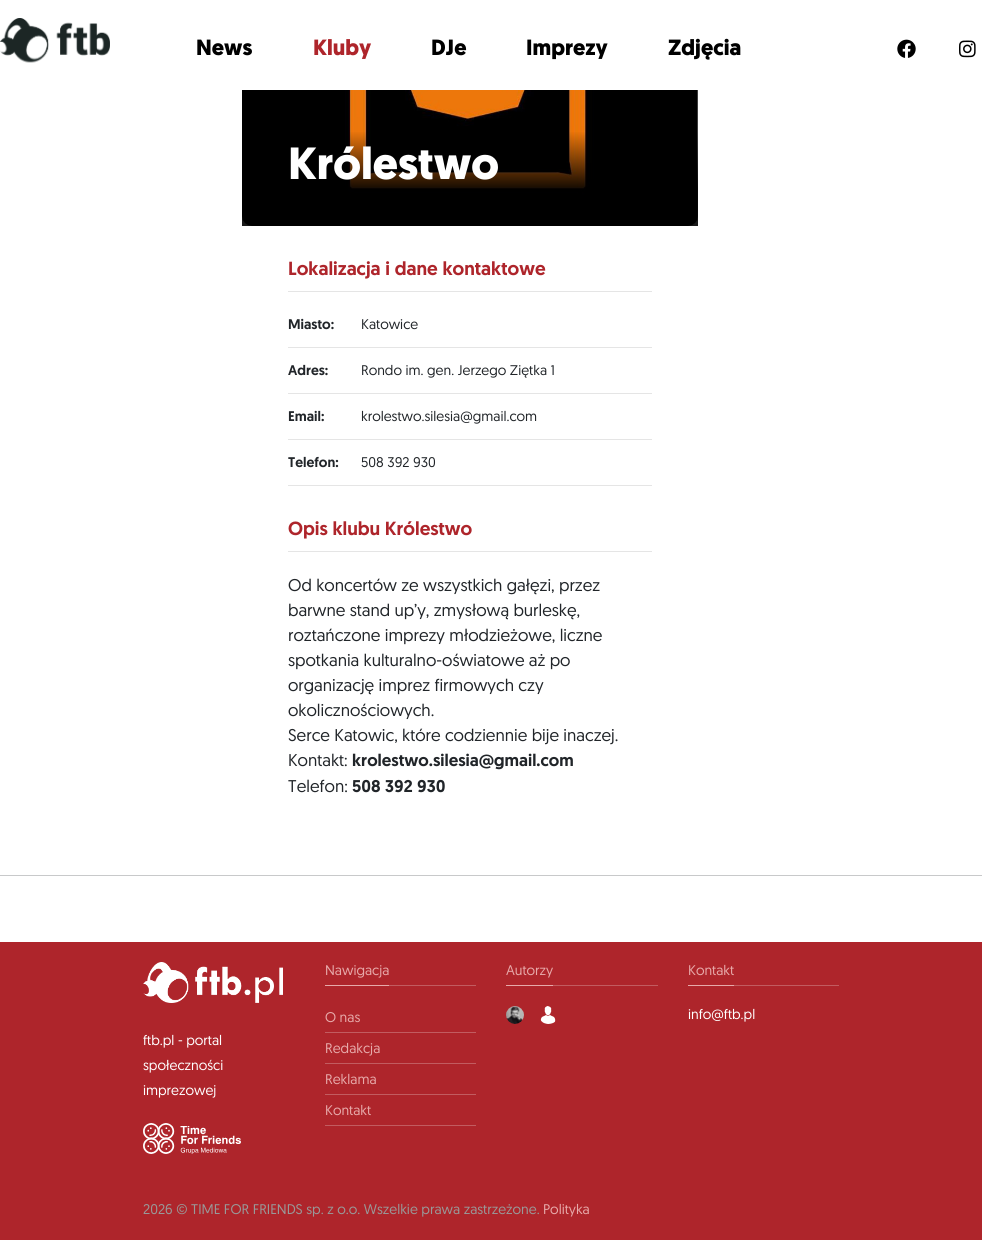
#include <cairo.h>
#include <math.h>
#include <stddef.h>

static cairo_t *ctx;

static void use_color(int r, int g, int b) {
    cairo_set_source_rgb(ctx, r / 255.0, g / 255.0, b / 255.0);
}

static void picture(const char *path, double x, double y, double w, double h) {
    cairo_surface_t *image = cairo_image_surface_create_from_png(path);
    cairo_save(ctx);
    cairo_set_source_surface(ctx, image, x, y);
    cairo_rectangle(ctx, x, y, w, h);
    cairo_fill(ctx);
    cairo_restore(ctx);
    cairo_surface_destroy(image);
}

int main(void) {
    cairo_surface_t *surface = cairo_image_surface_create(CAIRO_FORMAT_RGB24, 982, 1240);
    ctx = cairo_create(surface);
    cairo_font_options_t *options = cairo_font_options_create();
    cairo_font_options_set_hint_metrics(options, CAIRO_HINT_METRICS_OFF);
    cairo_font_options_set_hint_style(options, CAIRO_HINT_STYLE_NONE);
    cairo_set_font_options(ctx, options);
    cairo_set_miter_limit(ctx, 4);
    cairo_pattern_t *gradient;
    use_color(255, 255, 255);
    cairo_paint(ctx);
    picture("img1.png", 0, 18, 110, 45);
    cairo_select_font_face(ctx, "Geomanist", CAIRO_FONT_SLANT_NORMAL, CAIRO_FONT_WEIGHT_BOLD);
    cairo_set_font_size(ctx, 22);
    use_color(0, 0, 0);
    cairo_move_to(ctx, 196, 55);
    cairo_show_text(ctx, "News");
    use_color(174, 37, 43);
    cairo_move_to(ctx, 313, 55);
    cairo_show_text(ctx, "Kluby");
    use_color(0, 0, 0);
    cairo_move_to(ctx, 431, 55);
    cairo_show_text(ctx, "DJe");
    cairo_move_to(ctx, 526, 55);
    cairo_show_text(ctx, "Imprezy");
    cairo_move_to(ctx, 668, 55);
    cairo_show_text(ctx, "Zdjęcia");
    picture("img2.png", 897, 39, 19, 19);
    picture("img3.png", 959, 40, 17, 18);
    picture("img4.png", 242, 90, 456, 136);
    gradient = cairo_pattern_create_linear(470, 131, 470, 226);
    cairo_pattern_add_color_stop_rgba(gradient, 0, 0, 0, 0, 0);
    cairo_pattern_add_color_stop_rgba(gradient, 0.6, 0, 0, 0, 0.9);
    cairo_pattern_add_color_stop_rgba(gradient, 1, 0, 0, 0, 0.9);
    cairo_set_source(ctx, gradient);
    cairo_pattern_destroy(gradient);
    cairo_rectangle(ctx, 242, 132, 456, 94);
    cairo_fill(ctx);
    cairo_set_font_size(ctx, 45);
    use_color(255, 255, 255);
    cairo_move_to(ctx, 288, 179);
    cairo_show_text(ctx, "Królestwo");
    use_color(229, 229, 229);
    cairo_rectangle(ctx, 288, 291, 364, 1);
    cairo_fill(ctx);
    cairo_select_font_face(ctx, "Geomanist Medium", CAIRO_FONT_SLANT_NORMAL, CAIRO_FONT_WEIGHT_NORMAL);
    cairo_set_font_size(ctx, 19);
    use_color(174, 37, 43);
    cairo_move_to(ctx, 288, 275);
    cairo_show_text(ctx, "Lokalizacja i dane kontaktowe");
    use_color(229, 229, 229);
    cairo_rectangle(ctx, 288, 347, 364, 1);
    cairo_fill(ctx);
    cairo_set_font_size(ctx, 14);
    use_color(33, 37, 41);
    cairo_move_to(ctx, 288, 329);
    cairo_show_text(ctx, "Miasto:");
    cairo_select_font_face(ctx, "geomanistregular", CAIRO_FONT_SLANT_NORMAL, CAIRO_FONT_WEIGHT_NORMAL);
    cairo_move_to(ctx, 361, 329);
    cairo_show_text(ctx, "Katowice");
    use_color(229, 229, 229);
    cairo_rectangle(ctx, 288, 393, 364, 1);
    cairo_fill(ctx);
    cairo_select_font_face(ctx, "Geomanist Medium", CAIRO_FONT_SLANT_NORMAL, CAIRO_FONT_WEIGHT_NORMAL);
    use_color(33, 37, 41);
    cairo_move_to(ctx, 288, 375);
    cairo_show_text(ctx, "Adres:");
    cairo_select_font_face(ctx, "geomanistregular", CAIRO_FONT_SLANT_NORMAL, CAIRO_FONT_WEIGHT_NORMAL);
    cairo_move_to(ctx, 361, 375);
    cairo_show_text(ctx, "Rondo im. gen. Jerzego Ziętka 1");
    use_color(229, 229, 229);
    cairo_rectangle(ctx, 288, 439, 364, 1);
    cairo_fill(ctx);
    cairo_select_font_face(ctx, "Geomanist Medium", CAIRO_FONT_SLANT_NORMAL, CAIRO_FONT_WEIGHT_NORMAL);
    use_color(33, 37, 41);
    cairo_move_to(ctx, 288, 421);
    cairo_show_text(ctx, "Email:");
    cairo_select_font_face(ctx, "geomanistregular", CAIRO_FONT_SLANT_NORMAL, CAIRO_FONT_WEIGHT_NORMAL);
    cairo_move_to(ctx, 361, 421);
    cairo_show_text(ctx, "krolestwo.silesia@gmail.com");
    use_color(229, 229, 229);
    cairo_rectangle(ctx, 288, 485, 364, 1);
    cairo_fill(ctx);
    cairo_select_font_face(ctx, "Geomanist Medium", CAIRO_FONT_SLANT_NORMAL, CAIRO_FONT_WEIGHT_NORMAL);
    use_color(33, 37, 41);
    cairo_move_to(ctx, 288, 467);
    cairo_show_text(ctx, "Telefon:");
    cairo_select_font_face(ctx, "geomanistregular", CAIRO_FONT_SLANT_NORMAL, CAIRO_FONT_WEIGHT_NORMAL);
    cairo_move_to(ctx, 361, 467);
    cairo_show_text(ctx, "508 392 930");
    use_color(229, 229, 229);
    cairo_rectangle(ctx, 288, 551, 364, 1);
    cairo_fill(ctx);
    cairo_select_font_face(ctx, "Geomanist Medium", CAIRO_FONT_SLANT_NORMAL, CAIRO_FONT_WEIGHT_NORMAL);
    cairo_set_font_size(ctx, 19);
    use_color(174, 37, 43);
    cairo_move_to(ctx, 288, 535);
    cairo_show_text(ctx, "Opis klubu Królestwo");
    cairo_select_font_face(ctx, "geomanistregular", CAIRO_FONT_SLANT_NORMAL, CAIRO_FONT_WEIGHT_NORMAL);
    cairo_set_font_size(ctx, 17);
    use_color(33, 37, 41);
    cairo_move_to(ctx, 288, 591);
    cairo_show_text(ctx, "Od koncertów ze wszystkich gałęzi, przez");
    cairo_move_to(ctx, 288, 616);
    cairo_show_text(ctx, "barwne stand up’y, zmysłową burleskę,");
    cairo_move_to(ctx, 288, 641);
    cairo_show_text(ctx, "roztańczone imprezy młodzieżowe, liczne");
    cairo_move_to(ctx, 288, 666);
    cairo_show_text(ctx, "spotkania kulturalno-oświatowe aż po");
    cairo_move_to(ctx, 288, 691);
    cairo_show_text(ctx, "organizację imprez firmowych czy");
    cairo_move_to(ctx, 288, 716);
    cairo_show_text(ctx, "okolicznościowych.");
    cairo_move_to(ctx, 288, 741);
    cairo_show_text(ctx, "Serce Katowic, które codziennie bije inaczej.");
    cairo_move_to(ctx, 288, 766);
    cairo_show_text(ctx, "Kontakt:");
    cairo_select_font_face(ctx, "Geomanist Medium", CAIRO_FONT_SLANT_NORMAL, CAIRO_FONT_WEIGHT_NORMAL);
    cairo_move_to(ctx, 352, 766);
    cairo_show_text(ctx, "krolestwo.silesia@gmail.com");
    cairo_select_font_face(ctx, "geomanistregular", CAIRO_FONT_SLANT_NORMAL, CAIRO_FONT_WEIGHT_NORMAL);
    cairo_move_to(ctx, 288, 792);
    cairo_show_text(ctx, "Telefon:");
    cairo_select_font_face(ctx, "Geomanist Medium", CAIRO_FONT_SLANT_NORMAL, CAIRO_FONT_WEIGHT_NORMAL);
    cairo_move_to(ctx, 352, 792);
    cairo_show_text(ctx, "508 392 930");
    use_color(200, 201, 202);
    cairo_rectangle(ctx, 0, 875, 982, 1);
    cairo_fill(ctx);
    use_color(174, 37, 43);
    cairo_rectangle(ctx, 0, 942, 982, 298);
    cairo_fill(ctx);
    use_color(194, 92, 96);
    cairo_rectangle(ctx, 389, 985, 87, 1);
    cairo_fill(ctx);
    cairo_select_font_face(ctx, "geomanistregular", CAIRO_FONT_SLANT_NORMAL, CAIRO_FONT_WEIGHT_NORMAL);
    cairo_set_font_size(ctx, 14);
    use_color(231, 170, 170);
    cairo_move_to(ctx, 325, 975);
    cairo_show_text(ctx, "Nawigacja");
    cairo_rectangle(ctx, 325, 985, 64, 1);
    cairo_fill(ctx);
    use_color(194, 92, 96);
    cairo_rectangle(ctx, 325, 1032, 151, 1);
    cairo_fill(ctx);
    use_color(231, 170, 170);
    cairo_move_to(ctx, 325, 1022);
    cairo_show_text(ctx, "O nas");
    use_color(194, 92, 96);
    cairo_rectangle(ctx, 325, 1063, 151, 1);
    cairo_fill(ctx);
    use_color(231, 170, 170);
    cairo_move_to(ctx, 325, 1053);
    cairo_show_text(ctx, "Redakcja");
    use_color(194, 92, 96);
    cairo_rectangle(ctx, 325, 1094, 151, 1);
    cairo_fill(ctx);
    use_color(231, 170, 170);
    cairo_move_to(ctx, 325, 1084);
    cairo_show_text(ctx, "Reklama");
    use_color(194, 92, 96);
    cairo_rectangle(ctx, 325, 1125, 151, 1);
    cairo_fill(ctx);
    use_color(231, 170, 170);
    cairo_move_to(ctx, 325, 1115);
    cairo_show_text(ctx, "Kontakt");
    use_color(194, 92, 96);
    cairo_rectangle(ctx, 553, 985, 105, 1);
    cairo_fill(ctx);
    use_color(231, 170, 170);
    cairo_move_to(ctx, 506, 975);
    cairo_show_text(ctx, "Autorzy");
    cairo_rectangle(ctx, 506, 985, 47, 1);
    cairo_fill(ctx);
    picture("img5.png", 506, 1006, 18, 18);
    picture("img6.png", 540, 1006, 16, 18);
    use_color(194, 92, 96);
    cairo_rectangle(ctx, 734, 985, 105, 1);
    cairo_fill(ctx);
    use_color(231, 170, 170);
    cairo_move_to(ctx, 688, 975);
    cairo_show_text(ctx, "Kontakt");
    cairo_rectangle(ctx, 688, 985, 46, 1);
    cairo_fill(ctx);
    use_color(255, 255, 255);
    cairo_move_to(ctx, 688, 1019);
    cairo_show_text(ctx, "info@ftb.pl");
    picture("img7.png", 143, 962, 140, 41);
    cairo_move_to(ctx, 143, 1045);
    cairo_show_text(ctx, "ftb.pl - portal");
    cairo_move_to(ctx, 143, 1070);
    cairo_show_text(ctx, "społeczności");
    cairo_move_to(ctx, 143, 1095);
    cairo_show_text(ctx, "imprezowej");
    picture("img8.png", 143, 1123, 98, 31);
    use_color(153, 153, 153);
    cairo_move_to(ctx, 143, 1214);
    cairo_show_text(ctx, "2026 © TIME FOR FRIENDS sp. z o.o. Wszelkie prawa zastrzeżone.");
    use_color(231, 170, 170);
    cairo_move_to(ctx, 543, 1214);
    cairo_show_text(ctx, "Polityka");
    cairo_surface_write_to_png(surface, "result.png");
    cairo_font_options_destroy(options);
    cairo_destroy(ctx);
    cairo_surface_destroy(surface);
    return 0;
}
